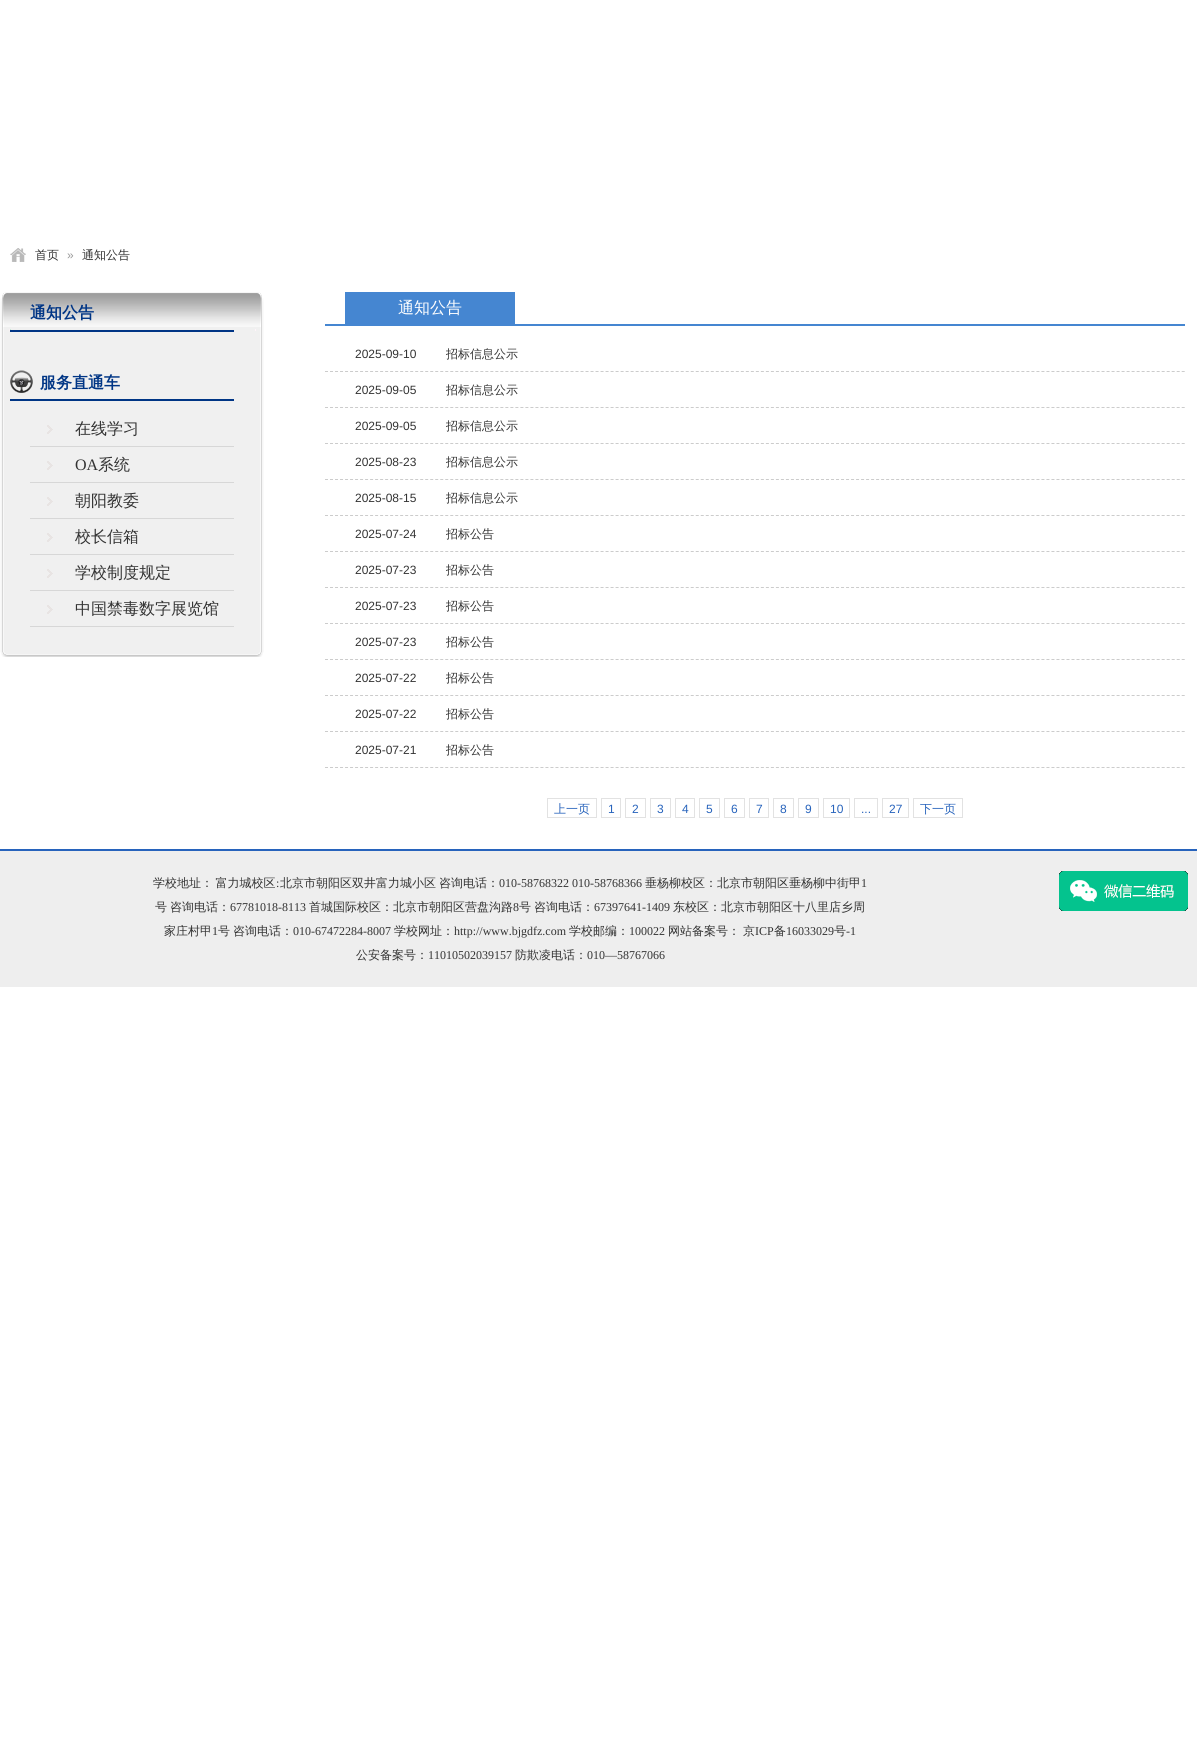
#include <cairo.h>
#include <math.h>
#include <stddef.h>

static cairo_t *ctx;

static void use_color(int r, int g, int b) {
    cairo_set_source_rgb(ctx, r / 255.0, g / 255.0, b / 255.0);
}

static void spaced_text(double x, double y, const char *s, double letter, double word) {
    cairo_move_to(ctx, x, y);
    while (*s) {
        char ch[5] = {0};
        int n = 0;
        do ch[n++] = *s++; while ((*s & 0xC0) == 0x80);
        cairo_show_text(ctx, ch);
        cairo_rel_move_to(ctx, letter + word * (*ch == ' '), 0);
    }
}

static void picture(const char *path, double x, double y, double w, double h) {
    cairo_surface_t *image = cairo_image_surface_create_from_png(path);
    cairo_save(ctx);
    cairo_set_source_surface(ctx, image, x, y);
    cairo_rectangle(ctx, x, y, w, h);
    cairo_fill(ctx);
    cairo_restore(ctx);
    cairo_surface_destroy(image);
}

int main(void) {
    cairo_surface_t *surface = cairo_image_surface_create(CAIRO_FORMAT_RGB24, 1197, 1756);
    ctx = cairo_create(surface);
    cairo_font_options_t *options = cairo_font_options_create();
    cairo_font_options_set_hint_metrics(options, CAIRO_HINT_METRICS_OFF);
    cairo_font_options_set_hint_style(options, CAIRO_HINT_STYLE_NONE);
    cairo_set_font_options(ctx, options);
    cairo_set_miter_limit(ctx, 4);
    use_color(255, 255, 255);
    cairo_paint(ctx);
    picture("img1.png", 10, 248, 16, 14);
    cairo_select_font_face(ctx, "WenQuanYi Zen Hei Medium", CAIRO_FONT_SLANT_NORMAL, CAIRO_FONT_WEIGHT_NORMAL);
    cairo_set_font_size(ctx, 12);
    use_color(51, 51, 51);
    cairo_move_to(ctx, 35, 259);
    cairo_show_text(ctx, "首页");
    cairo_select_font_face(ctx, "Liberation Sans", CAIRO_FONT_SLANT_NORMAL, CAIRO_FONT_WEIGHT_NORMAL);
    use_color(153, 153, 153);
    cairo_move_to(ctx, 67, 259);
    cairo_show_text(ctx, "»");
    cairo_select_font_face(ctx, "WenQuanYi Zen Hei Medium", CAIRO_FONT_SLANT_NORMAL, CAIRO_FONT_WEIGHT_NORMAL);
    use_color(51, 51, 51);
    cairo_move_to(ctx, 82, 259);
    cairo_show_text(ctx, "通知公告");
    picture("img2.png", 0, 292, 264, 360);
    use_color(0, 53, 133);
    cairo_rectangle(ctx, 10, 330, 224, 2);
    cairo_fill(ctx);
    cairo_select_font_face(ctx, "WenQuanYi Zen Hei", CAIRO_FONT_SLANT_NORMAL, CAIRO_FONT_WEIGHT_BOLD);
    cairo_set_font_size(ctx, 16);
    cairo_move_to(ctx, 30, 318);
    cairo_show_text(ctx, "通知公告");
    picture("img3.png", 10, 370, 23, 23);
    cairo_rectangle(ctx, 10, 399, 224, 2);
    cairo_fill(ctx);
    cairo_move_to(ctx, 40, 388);
    cairo_show_text(ctx, "服务直通车");
    use_color(215, 215, 215);
    cairo_rectangle(ctx, 30, 446, 204, 1);
    cairo_fill(ctx);
    picture("img4.png", 47, 425, 6, 9);
    cairo_select_font_face(ctx, "WenQuanYi Zen Hei Medium", CAIRO_FONT_SLANT_NORMAL, CAIRO_FONT_WEIGHT_NORMAL);
    use_color(51, 51, 51);
    cairo_move_to(ctx, 75, 434);
    cairo_show_text(ctx, "在线学习");
    use_color(215, 215, 215);
    cairo_rectangle(ctx, 30, 482, 204, 1);
    cairo_fill(ctx);
    picture("img4.png", 47, 461, 6, 9);
    cairo_select_font_face(ctx, "Liberation Serif", CAIRO_FONT_SLANT_NORMAL, CAIRO_FONT_WEIGHT_NORMAL);
    use_color(51, 51, 51);
    cairo_move_to(ctx, 75, 470);
    cairo_show_text(ctx, "OA");
    cairo_select_font_face(ctx, "WenQuanYi Zen Hei Medium", CAIRO_FONT_SLANT_NORMAL, CAIRO_FONT_WEIGHT_NORMAL);
    cairo_move_to(ctx, 98, 470);
    cairo_show_text(ctx, "系统");
    use_color(215, 215, 215);
    cairo_rectangle(ctx, 30, 518, 204, 1);
    cairo_fill(ctx);
    picture("img4.png", 47, 497, 6, 9);
    use_color(51, 51, 51);
    cairo_move_to(ctx, 75, 506);
    cairo_show_text(ctx, "朝阳教委");
    use_color(215, 215, 215);
    cairo_rectangle(ctx, 30, 554, 204, 1);
    cairo_fill(ctx);
    picture("img4.png", 47, 533, 6, 9);
    use_color(51, 51, 51);
    cairo_move_to(ctx, 75, 542);
    cairo_show_text(ctx, "校长信箱");
    use_color(215, 215, 215);
    cairo_rectangle(ctx, 30, 590, 204, 1);
    cairo_fill(ctx);
    picture("img4.png", 47, 569, 6, 9);
    use_color(51, 51, 51);
    cairo_move_to(ctx, 75, 578);
    cairo_show_text(ctx, "学校制度规定");
    use_color(215, 215, 215);
    cairo_rectangle(ctx, 30, 626, 204, 1);
    cairo_fill(ctx);
    picture("img4.png", 47, 605, 6, 9);
    use_color(51, 51, 51);
    cairo_move_to(ctx, 75, 614);
    cairo_show_text(ctx, "中国禁毒数字展览馆");
    picture("img5.png", 0, 652, 264, 5);
    use_color(69, 134, 209);
    cairo_rectangle(ctx, 325, 324, 860, 2);
    cairo_fill(ctx);
    cairo_rectangle(ctx, 345, 292, 170, 32);
    cairo_fill(ctx);
    use_color(255, 255, 255);
    cairo_move_to(ctx, 398, 313);
    cairo_show_text(ctx, "通知公告");
    cairo_new_path(ctx);
    cairo_move_to(ctx, 325, 371.5);
    cairo_line_to(ctx, 1185, 371.5);
    use_color(204, 204, 204);
    cairo_set_line_width(ctx, 1);
    cairo_set_dash(ctx, (double[]){3, 2.01}, 2, 0);
    cairo_stroke(ctx);
    cairo_select_font_face(ctx, "Liberation Sans", CAIRO_FONT_SLANT_NORMAL, CAIRO_FONT_WEIGHT_NORMAL);
    cairo_set_font_size(ctx, 12);
    use_color(51, 51, 51);
    cairo_move_to(ctx, 355, 358);
    cairo_show_text(ctx, "2025-09-10");
    cairo_select_font_face(ctx, "WenQuanYi Zen Hei Medium", CAIRO_FONT_SLANT_NORMAL, CAIRO_FONT_WEIGHT_NORMAL);
    cairo_move_to(ctx, 446, 358);
    cairo_show_text(ctx, "招标信息公示");
    cairo_new_path(ctx);
    cairo_move_to(ctx, 325, 407.5);
    cairo_line_to(ctx, 1185, 407.5);
    use_color(204, 204, 204);
    cairo_stroke(ctx);
    cairo_select_font_face(ctx, "Liberation Sans", CAIRO_FONT_SLANT_NORMAL, CAIRO_FONT_WEIGHT_NORMAL);
    use_color(51, 51, 51);
    cairo_move_to(ctx, 355, 394);
    cairo_show_text(ctx, "2025-09-05");
    cairo_select_font_face(ctx, "WenQuanYi Zen Hei Medium", CAIRO_FONT_SLANT_NORMAL, CAIRO_FONT_WEIGHT_NORMAL);
    cairo_move_to(ctx, 446, 394);
    cairo_show_text(ctx, "招标信息公示");
    cairo_new_path(ctx);
    cairo_move_to(ctx, 325, 443.5);
    cairo_line_to(ctx, 1185, 443.5);
    use_color(204, 204, 204);
    cairo_stroke(ctx);
    cairo_select_font_face(ctx, "Liberation Sans", CAIRO_FONT_SLANT_NORMAL, CAIRO_FONT_WEIGHT_NORMAL);
    use_color(51, 51, 51);
    cairo_move_to(ctx, 355, 430);
    cairo_show_text(ctx, "2025-09-05");
    cairo_select_font_face(ctx, "WenQuanYi Zen Hei Medium", CAIRO_FONT_SLANT_NORMAL, CAIRO_FONT_WEIGHT_NORMAL);
    cairo_move_to(ctx, 446, 430);
    cairo_show_text(ctx, "招标信息公示");
    cairo_new_path(ctx);
    cairo_move_to(ctx, 325, 479.5);
    cairo_line_to(ctx, 1185, 479.5);
    use_color(204, 204, 204);
    cairo_stroke(ctx);
    cairo_select_font_face(ctx, "Liberation Sans", CAIRO_FONT_SLANT_NORMAL, CAIRO_FONT_WEIGHT_NORMAL);
    use_color(51, 51, 51);
    cairo_move_to(ctx, 355, 466);
    cairo_show_text(ctx, "2025-08-23");
    cairo_select_font_face(ctx, "WenQuanYi Zen Hei Medium", CAIRO_FONT_SLANT_NORMAL, CAIRO_FONT_WEIGHT_NORMAL);
    cairo_move_to(ctx, 446, 466);
    cairo_show_text(ctx, "招标信息公示");
    cairo_new_path(ctx);
    cairo_move_to(ctx, 325, 515.5);
    cairo_line_to(ctx, 1185, 515.5);
    use_color(204, 204, 204);
    cairo_stroke(ctx);
    cairo_select_font_face(ctx, "Liberation Sans", CAIRO_FONT_SLANT_NORMAL, CAIRO_FONT_WEIGHT_NORMAL);
    use_color(51, 51, 51);
    cairo_move_to(ctx, 355, 502);
    cairo_show_text(ctx, "2025-08-15");
    cairo_select_font_face(ctx, "WenQuanYi Zen Hei Medium", CAIRO_FONT_SLANT_NORMAL, CAIRO_FONT_WEIGHT_NORMAL);
    cairo_move_to(ctx, 446, 502);
    cairo_show_text(ctx, "招标信息公示");
    cairo_new_path(ctx);
    cairo_move_to(ctx, 325, 551.5);
    cairo_line_to(ctx, 1185, 551.5);
    use_color(204, 204, 204);
    cairo_stroke(ctx);
    cairo_select_font_face(ctx, "Liberation Sans", CAIRO_FONT_SLANT_NORMAL, CAIRO_FONT_WEIGHT_NORMAL);
    use_color(51, 51, 51);
    cairo_move_to(ctx, 355, 538);
    cairo_show_text(ctx, "2025-07-24");
    cairo_select_font_face(ctx, "WenQuanYi Zen Hei Medium", CAIRO_FONT_SLANT_NORMAL, CAIRO_FONT_WEIGHT_NORMAL);
    cairo_move_to(ctx, 446, 538);
    cairo_show_text(ctx, "招标公告");
    cairo_new_path(ctx);
    cairo_move_to(ctx, 325, 587.5);
    cairo_line_to(ctx, 1185, 587.5);
    use_color(204, 204, 204);
    cairo_stroke(ctx);
    cairo_select_font_face(ctx, "Liberation Sans", CAIRO_FONT_SLANT_NORMAL, CAIRO_FONT_WEIGHT_NORMAL);
    use_color(51, 51, 51);
    cairo_move_to(ctx, 355, 574);
    cairo_show_text(ctx, "2025-07-23");
    cairo_select_font_face(ctx, "WenQuanYi Zen Hei Medium", CAIRO_FONT_SLANT_NORMAL, CAIRO_FONT_WEIGHT_NORMAL);
    cairo_move_to(ctx, 446, 574);
    cairo_show_text(ctx, "招标公告");
    cairo_new_path(ctx);
    cairo_move_to(ctx, 325, 623.5);
    cairo_line_to(ctx, 1185, 623.5);
    use_color(204, 204, 204);
    cairo_stroke(ctx);
    cairo_select_font_face(ctx, "Liberation Sans", CAIRO_FONT_SLANT_NORMAL, CAIRO_FONT_WEIGHT_NORMAL);
    use_color(51, 51, 51);
    cairo_move_to(ctx, 355, 610);
    cairo_show_text(ctx, "2025-07-23");
    cairo_select_font_face(ctx, "WenQuanYi Zen Hei Medium", CAIRO_FONT_SLANT_NORMAL, CAIRO_FONT_WEIGHT_NORMAL);
    cairo_move_to(ctx, 446, 610);
    cairo_show_text(ctx, "招标公告");
    cairo_new_path(ctx);
    cairo_move_to(ctx, 325, 659.5);
    cairo_line_to(ctx, 1185, 659.5);
    use_color(204, 204, 204);
    cairo_stroke(ctx);
    cairo_select_font_face(ctx, "Liberation Sans", CAIRO_FONT_SLANT_NORMAL, CAIRO_FONT_WEIGHT_NORMAL);
    use_color(51, 51, 51);
    cairo_move_to(ctx, 355, 646);
    cairo_show_text(ctx, "2025-07-23");
    cairo_select_font_face(ctx, "WenQuanYi Zen Hei Medium", CAIRO_FONT_SLANT_NORMAL, CAIRO_FONT_WEIGHT_NORMAL);
    cairo_move_to(ctx, 446, 646);
    cairo_show_text(ctx, "招标公告");
    cairo_new_path(ctx);
    cairo_move_to(ctx, 325, 695.5);
    cairo_line_to(ctx, 1185, 695.5);
    use_color(204, 204, 204);
    cairo_stroke(ctx);
    cairo_select_font_face(ctx, "Liberation Sans", CAIRO_FONT_SLANT_NORMAL, CAIRO_FONT_WEIGHT_NORMAL);
    use_color(51, 51, 51);
    cairo_move_to(ctx, 355, 682);
    cairo_show_text(ctx, "2025-07-22");
    cairo_select_font_face(ctx, "WenQuanYi Zen Hei Medium", CAIRO_FONT_SLANT_NORMAL, CAIRO_FONT_WEIGHT_NORMAL);
    cairo_move_to(ctx, 446, 682);
    cairo_show_text(ctx, "招标公告");
    cairo_new_path(ctx);
    cairo_move_to(ctx, 325, 731.5);
    cairo_line_to(ctx, 1185, 731.5);
    use_color(204, 204, 204);
    cairo_stroke(ctx);
    cairo_select_font_face(ctx, "Liberation Sans", CAIRO_FONT_SLANT_NORMAL, CAIRO_FONT_WEIGHT_NORMAL);
    use_color(51, 51, 51);
    cairo_move_to(ctx, 355, 718);
    cairo_show_text(ctx, "2025-07-22");
    cairo_select_font_face(ctx, "WenQuanYi Zen Hei Medium", CAIRO_FONT_SLANT_NORMAL, CAIRO_FONT_WEIGHT_NORMAL);
    cairo_move_to(ctx, 446, 718);
    cairo_show_text(ctx, "招标公告");
    cairo_new_path(ctx);
    cairo_move_to(ctx, 325, 767.5);
    cairo_line_to(ctx, 1185, 767.5);
    use_color(204, 204, 204);
    cairo_stroke(ctx);
    cairo_select_font_face(ctx, "Liberation Sans", CAIRO_FONT_SLANT_NORMAL, CAIRO_FONT_WEIGHT_NORMAL);
    use_color(51, 51, 51);
    cairo_move_to(ctx, 355, 754);
    cairo_show_text(ctx, "2025-07-21");
    cairo_select_font_face(ctx, "WenQuanYi Zen Hei Medium", CAIRO_FONT_SLANT_NORMAL, CAIRO_FONT_WEIGHT_NORMAL);
    cairo_move_to(ctx, 446, 754);
    cairo_show_text(ctx, "招标公告");
    cairo_rectangle(ctx, 547.5, 798.5, 49, 19);
    use_color(226, 226, 226);
    cairo_set_dash(ctx, NULL, 0, 0);
    cairo_stroke(ctx);
    use_color(39, 99, 188);
    cairo_move_to(ctx, 554, 813);
    cairo_show_text(ctx, "上一页");
    cairo_rectangle(ctx, 601.5, 798.5, 19, 19);
    use_color(226, 226, 226);
    cairo_stroke(ctx);
    cairo_select_font_face(ctx, "Liberation Sans", CAIRO_FONT_SLANT_NORMAL, CAIRO_FONT_WEIGHT_NORMAL);
    use_color(39, 99, 188);
    cairo_move_to(ctx, 608, 813);
    cairo_show_text(ctx, "1");
    cairo_rectangle(ctx, 625.5, 798.5, 20, 19);
    use_color(226, 226, 226);
    cairo_stroke(ctx);
    use_color(39, 99, 188);
    cairo_move_to(ctx, 632, 813);
    cairo_show_text(ctx, "2");
    cairo_rectangle(ctx, 650.5, 798.5, 20, 19);
    use_color(226, 226, 226);
    cairo_stroke(ctx);
    use_color(39, 99, 188);
    cairo_move_to(ctx, 657, 813);
    cairo_show_text(ctx, "3");
    cairo_rectangle(ctx, 675.5, 798.5, 19, 19);
    use_color(226, 226, 226);
    cairo_stroke(ctx);
    use_color(39, 99, 188);
    cairo_move_to(ctx, 682, 813);
    cairo_show_text(ctx, "4");
    cairo_rectangle(ctx, 699.5, 798.5, 20, 19);
    use_color(226, 226, 226);
    cairo_stroke(ctx);
    use_color(39, 99, 188);
    cairo_move_to(ctx, 706, 813);
    cairo_show_text(ctx, "5");
    cairo_rectangle(ctx, 724.5, 798.5, 20, 19);
    use_color(226, 226, 226);
    cairo_stroke(ctx);
    use_color(39, 99, 188);
    cairo_move_to(ctx, 731, 813);
    cairo_show_text(ctx, "6");
    cairo_rectangle(ctx, 749.5, 798.5, 19, 19);
    use_color(226, 226, 226);
    cairo_stroke(ctx);
    use_color(39, 99, 188);
    cairo_move_to(ctx, 756, 813);
    cairo_show_text(ctx, "7");
    cairo_rectangle(ctx, 773.5, 798.5, 20, 19);
    use_color(226, 226, 226);
    cairo_stroke(ctx);
    use_color(39, 99, 188);
    cairo_move_to(ctx, 780, 813);
    cairo_show_text(ctx, "8");
    cairo_rectangle(ctx, 798.5, 798.5, 20, 19);
    use_color(226, 226, 226);
    cairo_stroke(ctx);
    use_color(39, 99, 188);
    cairo_move_to(ctx, 805, 813);
    cairo_show_text(ctx, "9");
    cairo_rectangle(ctx, 823.5, 798.5, 26, 19);
    use_color(226, 226, 226);
    cairo_stroke(ctx);
    use_color(39, 99, 188);
    cairo_move_to(ctx, 830, 813);
    cairo_show_text(ctx, "10");
    cairo_rectangle(ctx, 854.5, 798.5, 23, 19);
    use_color(226, 226, 226);
    cairo_stroke(ctx);
    use_color(39, 99, 188);
    cairo_move_to(ctx, 861, 813);
    cairo_show_text(ctx, "...");
    cairo_rectangle(ctx, 882.5, 798.5, 26, 19);
    use_color(226, 226, 226);
    cairo_stroke(ctx);
    use_color(39, 99, 188);
    cairo_move_to(ctx, 889, 813);
    cairo_show_text(ctx, "27");
    cairo_rectangle(ctx, 913.5, 798.5, 49, 19);
    use_color(226, 226, 226);
    cairo_stroke(ctx);
    cairo_select_font_face(ctx, "WenQuanYi Zen Hei Medium", CAIRO_FONT_SLANT_NORMAL, CAIRO_FONT_WEIGHT_NORMAL);
    use_color(39, 99, 188);
    cairo_move_to(ctx, 920, 813);
    cairo_show_text(ctx, "下一页");
    use_color(238, 238, 238);
    cairo_rectangle(ctx, 0, 851, 1197, 136);
    cairo_fill(ctx);
    use_color(39, 99, 188);
    cairo_rectangle(ctx, 0, 849, 1197, 2);
    cairo_fill(ctx);
    use_color(51, 51, 51);
    spaced_text(153, 887, "学校地址： 富力城校区", 0, -1);
    cairo_select_font_face(ctx, "Liberation Serif", CAIRO_FONT_SLANT_NORMAL, CAIRO_FONT_WEIGHT_NORMAL);
    cairo_move_to(ctx, 276, 887);
    cairo_show_text(ctx, ":");
    cairo_select_font_face(ctx, "WenQuanYi Zen Hei Medium", CAIRO_FONT_SLANT_NORMAL, CAIRO_FONT_WEIGHT_NORMAL);
    cairo_move_to(ctx, 280, 887);
    cairo_show_text(ctx, "北京市朝阳区双井富力城小区");
    cairo_move_to(ctx, 439, 887);
    cairo_show_text(ctx, "咨询电话：");
    cairo_select_font_face(ctx, "Liberation Serif", CAIRO_FONT_SLANT_NORMAL, CAIRO_FONT_WEIGHT_NORMAL);
    cairo_move_to(ctx, 499, 887);
    cairo_show_text(ctx, "010-58768322 010-58768366");
    cairo_select_font_face(ctx, "WenQuanYi Zen Hei Medium", CAIRO_FONT_SLANT_NORMAL, CAIRO_FONT_WEIGHT_NORMAL);
    cairo_move_to(ctx, 645, 887);
    cairo_show_text(ctx, "垂杨柳校区：北京市朝阳区垂杨柳中街甲");
    cairo_select_font_face(ctx, "Liberation Serif", CAIRO_FONT_SLANT_NORMAL, CAIRO_FONT_WEIGHT_NORMAL);
    cairo_move_to(ctx, 861, 887);
    cairo_show_text(ctx, "1");
    cairo_select_font_face(ctx, "WenQuanYi Zen Hei Medium", CAIRO_FONT_SLANT_NORMAL, CAIRO_FONT_WEIGHT_NORMAL);
    cairo_move_to(ctx, 155, 911);
    cairo_show_text(ctx, "号");
    cairo_move_to(ctx, 170, 911);
    cairo_show_text(ctx, "咨询电话：");
    cairo_select_font_face(ctx, "Liberation Serif", CAIRO_FONT_SLANT_NORMAL, CAIRO_FONT_WEIGHT_NORMAL);
    cairo_move_to(ctx, 230, 911);
    cairo_show_text(ctx, "67781018-8113");
    cairo_select_font_face(ctx, "WenQuanYi Zen Hei Medium", CAIRO_FONT_SLANT_NORMAL, CAIRO_FONT_WEIGHT_NORMAL);
    cairo_move_to(ctx, 309, 911);
    cairo_show_text(ctx, "首城国际校区：北京市朝阳区营盘沟路");
    cairo_select_font_face(ctx, "Liberation Serif", CAIRO_FONT_SLANT_NORMAL, CAIRO_FONT_WEIGHT_NORMAL);
    cairo_move_to(ctx, 513, 911);
    cairo_show_text(ctx, "8");
    cairo_select_font_face(ctx, "WenQuanYi Zen Hei Medium", CAIRO_FONT_SLANT_NORMAL, CAIRO_FONT_WEIGHT_NORMAL);
    cairo_move_to(ctx, 519, 911);
    cairo_show_text(ctx, "号");
    cairo_move_to(ctx, 534, 911);
    cairo_show_text(ctx, "咨询电话：");
    cairo_select_font_face(ctx, "Liberation Serif", CAIRO_FONT_SLANT_NORMAL, CAIRO_FONT_WEIGHT_NORMAL);
    cairo_move_to(ctx, 594, 911);
    cairo_show_text(ctx, "67397641-1409");
    cairo_select_font_face(ctx, "WenQuanYi Zen Hei Medium", CAIRO_FONT_SLANT_NORMAL, CAIRO_FONT_WEIGHT_NORMAL);
    cairo_move_to(ctx, 673, 911);
    cairo_show_text(ctx, "东校区：北京市朝阳区十八里店乡周");
    cairo_move_to(ctx, 164, 935);
    cairo_show_text(ctx, "家庄村甲");
    cairo_select_font_face(ctx, "Liberation Serif", CAIRO_FONT_SLANT_NORMAL, CAIRO_FONT_WEIGHT_NORMAL);
    cairo_move_to(ctx, 212, 935);
    cairo_show_text(ctx, "1");
    cairo_select_font_face(ctx, "WenQuanYi Zen Hei Medium", CAIRO_FONT_SLANT_NORMAL, CAIRO_FONT_WEIGHT_NORMAL);
    cairo_move_to(ctx, 218, 935);
    cairo_show_text(ctx, "号");
    cairo_move_to(ctx, 233, 935);
    cairo_show_text(ctx, "咨询电话：");
    cairo_select_font_face(ctx, "Liberation Serif", CAIRO_FONT_SLANT_NORMAL, CAIRO_FONT_WEIGHT_NORMAL);
    cairo_move_to(ctx, 293, 935);
    cairo_show_text(ctx, "010-67472284-8007");
    cairo_select_font_face(ctx, "WenQuanYi Zen Hei Medium", CAIRO_FONT_SLANT_NORMAL, CAIRO_FONT_WEIGHT_NORMAL);
    cairo_move_to(ctx, 394, 935);
    cairo_show_text(ctx, "学校网址：");
    cairo_select_font_face(ctx, "Liberation Serif", CAIRO_FONT_SLANT_NORMAL, CAIRO_FONT_WEIGHT_NORMAL);
    cairo_move_to(ctx, 454, 935);
    cairo_show_text(ctx, "http://www.bjgdfz.com");
    cairo_select_font_face(ctx, "WenQuanYi Zen Hei Medium", CAIRO_FONT_SLANT_NORMAL, CAIRO_FONT_WEIGHT_NORMAL);
    cairo_move_to(ctx, 569, 935);
    cairo_show_text(ctx, "学校邮编：");
    cairo_select_font_face(ctx, "Liberation Serif", CAIRO_FONT_SLANT_NORMAL, CAIRO_FONT_WEIGHT_NORMAL);
    cairo_move_to(ctx, 629, 935);
    cairo_show_text(ctx, "100022");
    cairo_select_font_face(ctx, "WenQuanYi Zen Hei Medium", CAIRO_FONT_SLANT_NORMAL, CAIRO_FONT_WEIGHT_NORMAL);
    cairo_move_to(ctx, 668, 935);
    cairo_show_text(ctx, "网站备案号：");
    cairo_move_to(ctx, 743, 935);
    cairo_show_text(ctx, "京");
    cairo_select_font_face(ctx, "Liberation Serif", CAIRO_FONT_SLANT_NORMAL, CAIRO_FONT_WEIGHT_NORMAL);
    cairo_move_to(ctx, 755, 935);
    cairo_show_text(ctx, "ICP");
    cairo_select_font_face(ctx, "WenQuanYi Zen Hei Medium", CAIRO_FONT_SLANT_NORMAL, CAIRO_FONT_WEIGHT_NORMAL);
    cairo_move_to(ctx, 774, 935);
    cairo_show_text(ctx, "备");
    cairo_select_font_face(ctx, "Liberation Serif", CAIRO_FONT_SLANT_NORMAL, CAIRO_FONT_WEIGHT_NORMAL);
    cairo_move_to(ctx, 786, 935);
    cairo_show_text(ctx, "16033029");
    cairo_select_font_face(ctx, "WenQuanYi Zen Hei Medium", CAIRO_FONT_SLANT_NORMAL, CAIRO_FONT_WEIGHT_NORMAL);
    cairo_move_to(ctx, 834, 935);
    cairo_show_text(ctx, "号");
    cairo_select_font_face(ctx, "Liberation Serif", CAIRO_FONT_SLANT_NORMAL, CAIRO_FONT_WEIGHT_NORMAL);
    cairo_move_to(ctx, 846, 935);
    cairo_show_text(ctx, "-1");
    cairo_select_font_face(ctx, "WenQuanYi Zen Hei Medium", CAIRO_FONT_SLANT_NORMAL, CAIRO_FONT_WEIGHT_NORMAL);
    cairo_move_to(ctx, 356, 959);
    cairo_show_text(ctx, "公安备案号：");
    cairo_select_font_face(ctx, "Liberation Serif", CAIRO_FONT_SLANT_NORMAL, CAIRO_FONT_WEIGHT_NORMAL);
    cairo_move_to(ctx, 428, 959);
    cairo_show_text(ctx, "11010502039157");
    cairo_select_font_face(ctx, "WenQuanYi Zen Hei Medium", CAIRO_FONT_SLANT_NORMAL, CAIRO_FONT_WEIGHT_NORMAL);
    cairo_move_to(ctx, 515, 959);
    cairo_show_text(ctx, "防欺凌电话：");
    cairo_select_font_face(ctx, "Liberation Serif", CAIRO_FONT_SLANT_NORMAL, CAIRO_FONT_WEIGHT_NORMAL);
    cairo_move_to(ctx, 587, 959);
    cairo_show_text(ctx, "010—58767066");
    picture("img6.png", 1059, 871, 129, 40);
    cairo_surface_write_to_png(surface, "result.png");
    cairo_font_options_destroy(options);
    cairo_destroy(ctx);
    cairo_surface_destroy(surface);
    return 0;
}
